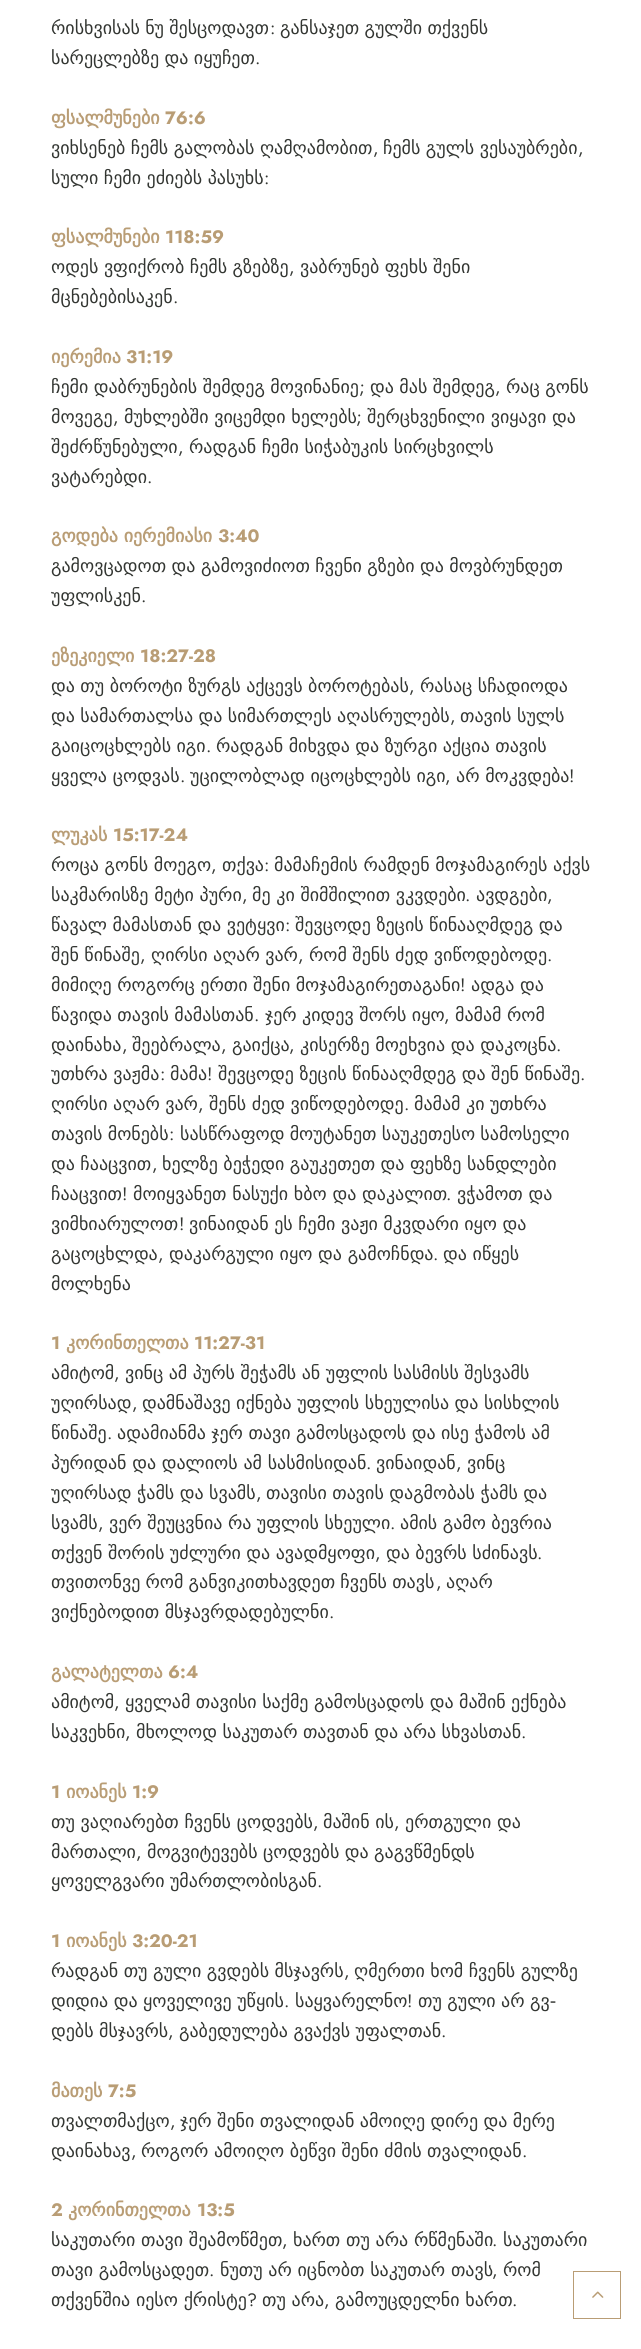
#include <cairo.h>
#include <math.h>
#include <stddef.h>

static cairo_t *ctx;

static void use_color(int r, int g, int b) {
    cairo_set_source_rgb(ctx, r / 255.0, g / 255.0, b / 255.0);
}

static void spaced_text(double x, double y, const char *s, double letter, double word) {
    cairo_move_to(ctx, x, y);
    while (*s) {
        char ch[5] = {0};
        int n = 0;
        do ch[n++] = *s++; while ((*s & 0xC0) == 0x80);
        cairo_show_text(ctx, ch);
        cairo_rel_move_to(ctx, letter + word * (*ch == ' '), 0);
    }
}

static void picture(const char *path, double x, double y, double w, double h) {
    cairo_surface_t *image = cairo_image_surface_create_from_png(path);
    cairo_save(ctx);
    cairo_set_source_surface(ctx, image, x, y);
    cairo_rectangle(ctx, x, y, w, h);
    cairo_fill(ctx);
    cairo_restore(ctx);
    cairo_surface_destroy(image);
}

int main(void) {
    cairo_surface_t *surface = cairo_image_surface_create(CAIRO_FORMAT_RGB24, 641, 2349);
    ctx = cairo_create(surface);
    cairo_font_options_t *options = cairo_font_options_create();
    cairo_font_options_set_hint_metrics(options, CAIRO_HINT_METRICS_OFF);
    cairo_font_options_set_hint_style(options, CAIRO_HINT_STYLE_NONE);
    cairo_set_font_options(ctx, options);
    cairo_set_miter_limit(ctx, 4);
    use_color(255, 255, 255);
    cairo_paint(ctx);
    cairo_select_font_face(ctx, "DejaVu Sans", CAIRO_FONT_SLANT_NORMAL, CAIRO_FONT_WEIGHT_NORMAL);
    cairo_set_font_size(ctx, 18);
    use_color(51, 54, 50);
    spaced_text(51, 34, "რისხვისას ნუ შესცოდავთ", 0, -0.5);
    cairo_select_font_face(ctx, "Jost", CAIRO_FONT_SLANT_NORMAL, CAIRO_FONT_WEIGHT_NORMAL);
    cairo_move_to(ctx, 270, 34);
    cairo_show_text(ctx, ":");
    cairo_select_font_face(ctx, "DejaVu Sans", CAIRO_FONT_SLANT_NORMAL, CAIRO_FONT_WEIGHT_NORMAL);
    spaced_text(280, 34, "განსაჯეთ გულში თქვენს", 0, -0.5);
    spaced_text(51, 64, "სარეცლებზე და იყუჩეთ", 0, -0.25);
    cairo_select_font_face(ctx, "Jost", CAIRO_FONT_SLANT_NORMAL, CAIRO_FONT_WEIGHT_NORMAL);
    cairo_move_to(ctx, 255, 64);
    cairo_show_text(ctx, ".");
    cairo_select_font_face(ctx, "DejaVu Sans", CAIRO_FONT_SLANT_NORMAL, CAIRO_FONT_WEIGHT_BOLD);
    use_color(185, 157, 117);
    cairo_move_to(ctx, 51, 124);
    cairo_show_text(ctx, "ფსალმუნები");
    cairo_select_font_face(ctx, "Jost", CAIRO_FONT_SLANT_NORMAL, CAIRO_FONT_WEIGHT_BOLD);
    cairo_move_to(ctx, 165, 124);
    cairo_show_text(ctx, "76:6");
    cairo_select_font_face(ctx, "DejaVu Sans", CAIRO_FONT_SLANT_NORMAL, CAIRO_FONT_WEIGHT_NORMAL);
    use_color(51, 54, 50);
    spaced_text(51, 154, "ვიხსენებ ჩემს გალობას ღამღამობით", 0, -0.25);
    cairo_select_font_face(ctx, "Jost", CAIRO_FONT_SLANT_NORMAL, CAIRO_FONT_WEIGHT_NORMAL);
    cairo_move_to(ctx, 373, 154);
    cairo_show_text(ctx, ",");
    cairo_select_font_face(ctx, "DejaVu Sans", CAIRO_FONT_SLANT_NORMAL, CAIRO_FONT_WEIGHT_NORMAL);
    spaced_text(383, 154, "ჩემს გულს ვესაუბრები", 0, -0.25);
    cairo_select_font_face(ctx, "Jost", CAIRO_FONT_SLANT_NORMAL, CAIRO_FONT_WEIGHT_NORMAL);
    cairo_move_to(ctx, 578, 154);
    cairo_show_text(ctx, ",");
    cairo_select_font_face(ctx, "DejaVu Sans", CAIRO_FONT_SLANT_NORMAL, CAIRO_FONT_WEIGHT_NORMAL);
    spaced_text(51, 184, "სული ჩემი ეძიებს პასუხს", 0, -0.25);
    cairo_select_font_face(ctx, "Jost", CAIRO_FONT_SLANT_NORMAL, CAIRO_FONT_WEIGHT_NORMAL);
    cairo_move_to(ctx, 264, 184);
    cairo_show_text(ctx, ":");
    cairo_select_font_face(ctx, "DejaVu Sans", CAIRO_FONT_SLANT_NORMAL, CAIRO_FONT_WEIGHT_BOLD);
    use_color(185, 157, 117);
    cairo_move_to(ctx, 51, 243);
    cairo_show_text(ctx, "ფსალმუნები");
    cairo_select_font_face(ctx, "Jost", CAIRO_FONT_SLANT_NORMAL, CAIRO_FONT_WEIGHT_BOLD);
    cairo_move_to(ctx, 165, 243);
    cairo_show_text(ctx, "118:59");
    cairo_select_font_face(ctx, "DejaVu Sans", CAIRO_FONT_SLANT_NORMAL, CAIRO_FONT_WEIGHT_NORMAL);
    use_color(51, 54, 50);
    spaced_text(51, 273, "ოდეს ვფიქრობ ჩემს გზებზე", 0, -0.25);
    cairo_select_font_face(ctx, "Jost", CAIRO_FONT_SLANT_NORMAL, CAIRO_FONT_WEIGHT_NORMAL);
    cairo_move_to(ctx, 289, 273);
    cairo_show_text(ctx, ",");
    cairo_select_font_face(ctx, "DejaVu Sans", CAIRO_FONT_SLANT_NORMAL, CAIRO_FONT_WEIGHT_NORMAL);
    spaced_text(300, 273, "ვაბრუნებ ფეხს შენი", 0, -0.25);
    cairo_move_to(ctx, 51, 303);
    cairo_show_text(ctx, "მცნებებისაკენ");
    cairo_select_font_face(ctx, "Jost", CAIRO_FONT_SLANT_NORMAL, CAIRO_FONT_WEIGHT_NORMAL);
    cairo_move_to(ctx, 173, 303);
    cairo_show_text(ctx, ".");
    cairo_select_font_face(ctx, "DejaVu Sans", CAIRO_FONT_SLANT_NORMAL, CAIRO_FONT_WEIGHT_BOLD);
    use_color(185, 157, 117);
    cairo_move_to(ctx, 51, 363);
    cairo_show_text(ctx, "იერემია");
    cairo_select_font_face(ctx, "Jost", CAIRO_FONT_SLANT_NORMAL, CAIRO_FONT_WEIGHT_BOLD);
    cairo_move_to(ctx, 126, 363);
    cairo_show_text(ctx, "31:19");
    cairo_select_font_face(ctx, "DejaVu Sans", CAIRO_FONT_SLANT_NORMAL, CAIRO_FONT_WEIGHT_NORMAL);
    use_color(51, 54, 50);
    spaced_text(51, 393, "ჩემი დაბრუნების შემდეგ მოვინანიე", 0, -0.25);
    cairo_select_font_face(ctx, "Jost", CAIRO_FONT_SLANT_NORMAL, CAIRO_FONT_WEIGHT_NORMAL);
    cairo_move_to(ctx, 359, 393);
    cairo_show_text(ctx, ";");
    cairo_select_font_face(ctx, "DejaVu Sans", CAIRO_FONT_SLANT_NORMAL, CAIRO_FONT_WEIGHT_NORMAL);
    spaced_text(370, 393, "და მას შემდეგ", 0, -0.25);
    cairo_select_font_face(ctx, "Jost", CAIRO_FONT_SLANT_NORMAL, CAIRO_FONT_WEIGHT_NORMAL);
    cairo_move_to(ctx, 495, 393);
    cairo_show_text(ctx, ",");
    cairo_select_font_face(ctx, "DejaVu Sans", CAIRO_FONT_SLANT_NORMAL, CAIRO_FONT_WEIGHT_NORMAL);
    spaced_text(506, 393, "რაც გონს", 0, -0.25);
    cairo_move_to(ctx, 51, 423);
    cairo_show_text(ctx, "მოვეგე");
    cairo_select_font_face(ctx, "Jost", CAIRO_FONT_SLANT_NORMAL, CAIRO_FONT_WEIGHT_NORMAL);
    cairo_move_to(ctx, 113, 423);
    cairo_show_text(ctx, ",");
    cairo_select_font_face(ctx, "DejaVu Sans", CAIRO_FONT_SLANT_NORMAL, CAIRO_FONT_WEIGHT_NORMAL);
    cairo_move_to(ctx, 124, 423);
    cairo_show_text(ctx, "მუხლებში ვიცემდი ხელებს");
    cairo_select_font_face(ctx, "Jost", CAIRO_FONT_SLANT_NORMAL, CAIRO_FONT_WEIGHT_NORMAL);
    cairo_move_to(ctx, 356, 423);
    cairo_show_text(ctx, ";");
    cairo_select_font_face(ctx, "DejaVu Sans", CAIRO_FONT_SLANT_NORMAL, CAIRO_FONT_WEIGHT_NORMAL);
    cairo_move_to(ctx, 367, 423);
    cairo_show_text(ctx, "შერცხვენილი ვიყავი და");
    cairo_move_to(ctx, 51, 453);
    cairo_show_text(ctx, "შეძრწუნებული");
    cairo_select_font_face(ctx, "Jost", CAIRO_FONT_SLANT_NORMAL, CAIRO_FONT_WEIGHT_NORMAL);
    cairo_move_to(ctx, 178, 453);
    cairo_show_text(ctx, ",");
    cairo_select_font_face(ctx, "DejaVu Sans", CAIRO_FONT_SLANT_NORMAL, CAIRO_FONT_WEIGHT_NORMAL);
    spaced_text(189, 453, "რადგან ჩემი სიჭაბუკის სირცხვილს", 0, -0.25);
    cairo_move_to(ctx, 51, 483);
    cairo_show_text(ctx, "ვატარებდი");
    cairo_select_font_face(ctx, "Jost", CAIRO_FONT_SLANT_NORMAL, CAIRO_FONT_WEIGHT_NORMAL);
    cairo_move_to(ctx, 147, 483);
    cairo_show_text(ctx, ".");
    cairo_select_font_face(ctx, "DejaVu Sans", CAIRO_FONT_SLANT_NORMAL, CAIRO_FONT_WEIGHT_BOLD);
    use_color(185, 157, 117);
    cairo_move_to(ctx, 51, 542);
    cairo_show_text(ctx, "გოდება იერემიასი");
    cairo_select_font_face(ctx, "Jost", CAIRO_FONT_SLANT_NORMAL, CAIRO_FONT_WEIGHT_BOLD);
    cairo_move_to(ctx, 218, 542);
    cairo_show_text(ctx, "3:40");
    cairo_select_font_face(ctx, "DejaVu Sans", CAIRO_FONT_SLANT_NORMAL, CAIRO_FONT_WEIGHT_NORMAL);
    use_color(51, 54, 50);
    spaced_text(51, 572, "გამოვცადოთ და გამოვიძიოთ ჩვენი გზები და მოვბრუნდეთ", 0, -0.25);
    cairo_move_to(ctx, 51, 602);
    cairo_show_text(ctx, "უფლისკენ");
    cairo_select_font_face(ctx, "Jost", CAIRO_FONT_SLANT_NORMAL, CAIRO_FONT_WEIGHT_NORMAL);
    cairo_move_to(ctx, 141, 602);
    cairo_show_text(ctx, ".");
    cairo_select_font_face(ctx, "DejaVu Sans", CAIRO_FONT_SLANT_NORMAL, CAIRO_FONT_WEIGHT_BOLD);
    use_color(185, 157, 117);
    cairo_move_to(ctx, 51, 662);
    cairo_show_text(ctx, "ეზეკიელი");
    cairo_select_font_face(ctx, "Jost", CAIRO_FONT_SLANT_NORMAL, CAIRO_FONT_WEIGHT_BOLD);
    cairo_move_to(ctx, 140, 662);
    cairo_show_text(ctx, "18:27-28");
    cairo_select_font_face(ctx, "DejaVu Sans", CAIRO_FONT_SLANT_NORMAL, CAIRO_FONT_WEIGHT_NORMAL);
    use_color(51, 54, 50);
    spaced_text(51, 692, "და თუ ბოროტი ზურგს აქცევს ბოროტებას", 0, -0.25);
    cairo_select_font_face(ctx, "Jost", CAIRO_FONT_SLANT_NORMAL, CAIRO_FONT_WEIGHT_NORMAL);
    cairo_move_to(ctx, 409, 692);
    cairo_show_text(ctx, ",");
    cairo_select_font_face(ctx, "DejaVu Sans", CAIRO_FONT_SLANT_NORMAL, CAIRO_FONT_WEIGHT_NORMAL);
    spaced_text(420, 692, "რასაც სჩადიოდა", 0, -0.25);
    spaced_text(51, 722, "და სამართალსა და სიმართლეს აღასრულებს", 0, -0.25);
    cairo_select_font_face(ctx, "Jost", CAIRO_FONT_SLANT_NORMAL, CAIRO_FONT_WEIGHT_NORMAL);
    cairo_move_to(ctx, 450, 722);
    cairo_show_text(ctx, ",");
    cairo_select_font_face(ctx, "DejaVu Sans", CAIRO_FONT_SLANT_NORMAL, CAIRO_FONT_WEIGHT_NORMAL);
    spaced_text(460, 722, "თავის სულს", 0, -0.25);
    spaced_text(51, 752, "გაიცოცხლებს იგი", 0, -0.25);
    cairo_select_font_face(ctx, "Jost", CAIRO_FONT_SLANT_NORMAL, CAIRO_FONT_WEIGHT_NORMAL);
    cairo_move_to(ctx, 206, 752);
    cairo_show_text(ctx, ".");
    cairo_select_font_face(ctx, "DejaVu Sans", CAIRO_FONT_SLANT_NORMAL, CAIRO_FONT_WEIGHT_NORMAL);
    spaced_text(216, 752, "რადგან მიხვდა და ზურგი აქცია თავის", 0, -0.25);
    cairo_move_to(ctx, 51, 782);
    cairo_show_text(ctx, "ყველა ცოდვას");
    cairo_select_font_face(ctx, "Jost", CAIRO_FONT_SLANT_NORMAL, CAIRO_FONT_WEIGHT_NORMAL);
    cairo_move_to(ctx, 180, 782);
    cairo_show_text(ctx, ".");
    cairo_select_font_face(ctx, "DejaVu Sans", CAIRO_FONT_SLANT_NORMAL, CAIRO_FONT_WEIGHT_NORMAL);
    cairo_move_to(ctx, 190, 782);
    cairo_show_text(ctx, "უცილობლად იცოცხლებს იგი");
    cairo_select_font_face(ctx, "Jost", CAIRO_FONT_SLANT_NORMAL, CAIRO_FONT_WEIGHT_NORMAL);
    cairo_move_to(ctx, 445, 782);
    cairo_show_text(ctx, ",");
    cairo_select_font_face(ctx, "DejaVu Sans", CAIRO_FONT_SLANT_NORMAL, CAIRO_FONT_WEIGHT_NORMAL);
    cairo_move_to(ctx, 456, 782);
    cairo_show_text(ctx, "არ მოკვდება");
    cairo_select_font_face(ctx, "Jost", CAIRO_FONT_SLANT_NORMAL, CAIRO_FONT_WEIGHT_NORMAL);
    cairo_move_to(ctx, 569, 782);
    cairo_show_text(ctx, "!");
    cairo_select_font_face(ctx, "DejaVu Sans", CAIRO_FONT_SLANT_NORMAL, CAIRO_FONT_WEIGHT_BOLD);
    use_color(185, 157, 117);
    cairo_move_to(ctx, 51, 841);
    cairo_show_text(ctx, "ლუკას");
    cairo_select_font_face(ctx, "Jost", CAIRO_FONT_SLANT_NORMAL, CAIRO_FONT_WEIGHT_BOLD);
    cairo_move_to(ctx, 113, 841);
    cairo_show_text(ctx, "15:17-24");
    cairo_select_font_face(ctx, "DejaVu Sans", CAIRO_FONT_SLANT_NORMAL, CAIRO_FONT_WEIGHT_NORMAL);
    use_color(51, 54, 50);
    cairo_move_to(ctx, 51, 871);
    cairo_show_text(ctx, "როცა გონს მოეგო");
    cairo_select_font_face(ctx, "Jost", CAIRO_FONT_SLANT_NORMAL, CAIRO_FONT_WEIGHT_NORMAL);
    cairo_move_to(ctx, 211, 871);
    cairo_show_text(ctx, ",");
    cairo_select_font_face(ctx, "DejaVu Sans", CAIRO_FONT_SLANT_NORMAL, CAIRO_FONT_WEIGHT_NORMAL);
    cairo_move_to(ctx, 222, 871);
    cairo_show_text(ctx, "თქვა");
    cairo_select_font_face(ctx, "Jost", CAIRO_FONT_SLANT_NORMAL, CAIRO_FONT_WEIGHT_NORMAL);
    cairo_move_to(ctx, 264, 871);
    cairo_show_text(ctx, ":");
    cairo_select_font_face(ctx, "DejaVu Sans", CAIRO_FONT_SLANT_NORMAL, CAIRO_FONT_WEIGHT_NORMAL);
    cairo_move_to(ctx, 274, 871);
    cairo_show_text(ctx, "მამაჩემის რამდენ მოჯამაგირეს აქვს");
    cairo_move_to(ctx, 51, 901);
    cairo_show_text(ctx, "საკმარისზე მეტი პური");
    cairo_select_font_face(ctx, "Jost", CAIRO_FONT_SLANT_NORMAL, CAIRO_FONT_WEIGHT_NORMAL);
    cairo_move_to(ctx, 242, 901);
    cairo_show_text(ctx, ",");
    cairo_select_font_face(ctx, "DejaVu Sans", CAIRO_FONT_SLANT_NORMAL, CAIRO_FONT_WEIGHT_NORMAL);
    cairo_move_to(ctx, 252, 901);
    cairo_show_text(ctx, "მე კი შიმშილით ვკვდები");
    cairo_select_font_face(ctx, "Jost", CAIRO_FONT_SLANT_NORMAL, CAIRO_FONT_WEIGHT_NORMAL);
    cairo_move_to(ctx, 465, 901);
    cairo_show_text(ctx, ".");
    cairo_select_font_face(ctx, "DejaVu Sans", CAIRO_FONT_SLANT_NORMAL, CAIRO_FONT_WEIGHT_NORMAL);
    cairo_move_to(ctx, 476, 901);
    cairo_show_text(ctx, "ავდგები");
    cairo_select_font_face(ctx, "Jost", CAIRO_FONT_SLANT_NORMAL, CAIRO_FONT_WEIGHT_NORMAL);
    cairo_move_to(ctx, 547, 901);
    cairo_show_text(ctx, ",");
    cairo_select_font_face(ctx, "DejaVu Sans", CAIRO_FONT_SLANT_NORMAL, CAIRO_FONT_WEIGHT_NORMAL);
    spaced_text(51, 931, "წავალ მამასთან და ვეტყვი", 0, -0.25);
    cairo_select_font_face(ctx, "Jost", CAIRO_FONT_SLANT_NORMAL, CAIRO_FONT_WEIGHT_NORMAL);
    cairo_move_to(ctx, 285, 931);
    cairo_show_text(ctx, ":");
    cairo_select_font_face(ctx, "DejaVu Sans", CAIRO_FONT_SLANT_NORMAL, CAIRO_FONT_WEIGHT_NORMAL);
    spaced_text(295, 931, "შევცოდე ზეცის წინააღმდეგ და", 0, -0.25);
    spaced_text(51, 961, "შენ წინაშე", 0, -0.25);
    cairo_select_font_face(ctx, "Jost", CAIRO_FONT_SLANT_NORMAL, CAIRO_FONT_WEIGHT_NORMAL);
    cairo_move_to(ctx, 140, 961);
    cairo_show_text(ctx, ",");
    cairo_select_font_face(ctx, "DejaVu Sans", CAIRO_FONT_SLANT_NORMAL, CAIRO_FONT_WEIGHT_NORMAL);
    spaced_text(151, 961, "ღირსი აღარ ვარ", 0, -0.25);
    cairo_select_font_face(ctx, "Jost", CAIRO_FONT_SLANT_NORMAL, CAIRO_FONT_WEIGHT_NORMAL);
    cairo_move_to(ctx, 298, 961);
    cairo_show_text(ctx, ",");
    cairo_select_font_face(ctx, "DejaVu Sans", CAIRO_FONT_SLANT_NORMAL, CAIRO_FONT_WEIGHT_NORMAL);
    spaced_text(309, 961, "რომ შენს ძედ ვიწოდებოდე", 0, -0.25);
    cairo_select_font_face(ctx, "Jost", CAIRO_FONT_SLANT_NORMAL, CAIRO_FONT_WEIGHT_NORMAL);
    cairo_move_to(ctx, 547, 961);
    cairo_show_text(ctx, ".");
    cairo_select_font_face(ctx, "DejaVu Sans", CAIRO_FONT_SLANT_NORMAL, CAIRO_FONT_WEIGHT_NORMAL);
    spaced_text(51, 991, "მიმიღე როგორც ერთი შენი მოჯამაგირეთაგანი", 0, -0.25);
    cairo_select_font_face(ctx, "Jost", CAIRO_FONT_SLANT_NORMAL, CAIRO_FONT_WEIGHT_NORMAL);
    cairo_move_to(ctx, 460, 991);
    cairo_show_text(ctx, "!");
    cairo_select_font_face(ctx, "DejaVu Sans", CAIRO_FONT_SLANT_NORMAL, CAIRO_FONT_WEIGHT_NORMAL);
    spaced_text(471, 991, "ადგა და", 0, -0.25);
    spaced_text(51, 1021, "წავიდა თავის მამასთან", 0, -0.25);
    cairo_select_font_face(ctx, "Jost", CAIRO_FONT_SLANT_NORMAL, CAIRO_FONT_WEIGHT_NORMAL);
    cairo_move_to(ctx, 254, 1021);
    cairo_show_text(ctx, ".");
    cairo_select_font_face(ctx, "DejaVu Sans", CAIRO_FONT_SLANT_NORMAL, CAIRO_FONT_WEIGHT_NORMAL);
    spaced_text(265, 1021, "ჯერ კიდევ შორს იყო", 0, -0.25);
    cairo_select_font_face(ctx, "Jost", CAIRO_FONT_SLANT_NORMAL, CAIRO_FONT_WEIGHT_NORMAL);
    cairo_move_to(ctx, 444, 1021);
    cairo_show_text(ctx, ",");
    cairo_select_font_face(ctx, "DejaVu Sans", CAIRO_FONT_SLANT_NORMAL, CAIRO_FONT_WEIGHT_NORMAL);
    spaced_text(455, 1021, "მამამ რომ", 0, -0.25);
    cairo_move_to(ctx, 51, 1051);
    cairo_show_text(ctx, "დაინახა");
    cairo_select_font_face(ctx, "Jost", CAIRO_FONT_SLANT_NORMAL, CAIRO_FONT_WEIGHT_NORMAL);
    cairo_move_to(ctx, 122, 1051);
    cairo_show_text(ctx, ",");
    cairo_select_font_face(ctx, "DejaVu Sans", CAIRO_FONT_SLANT_NORMAL, CAIRO_FONT_WEIGHT_NORMAL);
    cairo_move_to(ctx, 132, 1051);
    cairo_show_text(ctx, "შეებრალა");
    cairo_select_font_face(ctx, "Jost", CAIRO_FONT_SLANT_NORMAL, CAIRO_FONT_WEIGHT_NORMAL);
    cairo_move_to(ctx, 221, 1051);
    cairo_show_text(ctx, ",");
    cairo_select_font_face(ctx, "DejaVu Sans", CAIRO_FONT_SLANT_NORMAL, CAIRO_FONT_WEIGHT_NORMAL);
    cairo_move_to(ctx, 232, 1051);
    cairo_show_text(ctx, "გაიქცა");
    cairo_select_font_face(ctx, "Jost", CAIRO_FONT_SLANT_NORMAL, CAIRO_FONT_WEIGHT_NORMAL);
    cairo_move_to(ctx, 289, 1051);
    cairo_show_text(ctx, ",");
    cairo_select_font_face(ctx, "DejaVu Sans", CAIRO_FONT_SLANT_NORMAL, CAIRO_FONT_WEIGHT_NORMAL);
    cairo_move_to(ctx, 300, 1051);
    cairo_show_text(ctx, "კისერზე მოეხვია და დაკოცნა");
    cairo_select_font_face(ctx, "Jost", CAIRO_FONT_SLANT_NORMAL, CAIRO_FONT_WEIGHT_NORMAL);
    cairo_move_to(ctx, 556, 1051);
    cairo_show_text(ctx, ".");
    cairo_select_font_face(ctx, "DejaVu Sans", CAIRO_FONT_SLANT_NORMAL, CAIRO_FONT_WEIGHT_NORMAL);
    spaced_text(51, 1080, "უთხრა ვაჟმა", 0, -0.25);
    cairo_select_font_face(ctx, "Jost", CAIRO_FONT_SLANT_NORMAL, CAIRO_FONT_WEIGHT_NORMAL);
    cairo_move_to(ctx, 160, 1080);
    cairo_show_text(ctx, ":");
    cairo_select_font_face(ctx, "DejaVu Sans", CAIRO_FONT_SLANT_NORMAL, CAIRO_FONT_WEIGHT_NORMAL);
    cairo_move_to(ctx, 170, 1080);
    cairo_show_text(ctx, "მამა");
    cairo_select_font_face(ctx, "Jost", CAIRO_FONT_SLANT_NORMAL, CAIRO_FONT_WEIGHT_NORMAL);
    cairo_move_to(ctx, 207, 1080);
    cairo_show_text(ctx, "!");
    cairo_select_font_face(ctx, "DejaVu Sans", CAIRO_FONT_SLANT_NORMAL, CAIRO_FONT_WEIGHT_NORMAL);
    spaced_text(218, 1080, "შევცოდე ზეცის წინააღმდეგ და შენ წინაშე", 0, -0.25);
    cairo_select_font_face(ctx, "Jost", CAIRO_FONT_SLANT_NORMAL, CAIRO_FONT_WEIGHT_NORMAL);
    cairo_move_to(ctx, 580, 1080);
    cairo_show_text(ctx, ".");
    cairo_select_font_face(ctx, "DejaVu Sans", CAIRO_FONT_SLANT_NORMAL, CAIRO_FONT_WEIGHT_NORMAL);
    spaced_text(51, 1110, "ღირსი აღარ ვარ", 0, -0.25);
    cairo_select_font_face(ctx, "Jost", CAIRO_FONT_SLANT_NORMAL, CAIRO_FONT_WEIGHT_NORMAL);
    cairo_move_to(ctx, 198, 1110);
    cairo_show_text(ctx, ",");
    cairo_select_font_face(ctx, "DejaVu Sans", CAIRO_FONT_SLANT_NORMAL, CAIRO_FONT_WEIGHT_NORMAL);
    spaced_text(209, 1110, "შენს ძედ ვიწოდებოდე", 0, -0.25);
    cairo_select_font_face(ctx, "Jost", CAIRO_FONT_SLANT_NORMAL, CAIRO_FONT_WEIGHT_NORMAL);
    cairo_move_to(ctx, 404, 1110);
    cairo_show_text(ctx, ".");
    cairo_select_font_face(ctx, "DejaVu Sans", CAIRO_FONT_SLANT_NORMAL, CAIRO_FONT_WEIGHT_NORMAL);
    spaced_text(414, 1110, "მამამ კი უთხრა", 0, -0.25);
    spaced_text(51, 1140, "თავის მონებს", 0, -0.5);
    cairo_select_font_face(ctx, "Jost", CAIRO_FONT_SLANT_NORMAL, CAIRO_FONT_WEIGHT_NORMAL);
    cairo_move_to(ctx, 169, 1140);
    cairo_show_text(ctx, ":");
    cairo_select_font_face(ctx, "DejaVu Sans", CAIRO_FONT_SLANT_NORMAL, CAIRO_FONT_WEIGHT_NORMAL);
    spaced_text(180, 1140, "სასწრაფოდ მოუტანეთ საუკეთესო სამოსელი", 0, -0.5);
    spaced_text(51, 1170, "და ჩააცვით", 0, -0.25);
    cairo_select_font_face(ctx, "Jost", CAIRO_FONT_SLANT_NORMAL, CAIRO_FONT_WEIGHT_NORMAL);
    cairo_move_to(ctx, 152, 1170);
    cairo_show_text(ctx, ",");
    cairo_select_font_face(ctx, "DejaVu Sans", CAIRO_FONT_SLANT_NORMAL, CAIRO_FONT_WEIGHT_NORMAL);
    spaced_text(162, 1170, "ხელზე ბეჭედი გაუკეთეთ და ფეხზე სანდლები", 0, -0.25);
    cairo_move_to(ctx, 51, 1200);
    cairo_show_text(ctx, "ჩააცვით");
    cairo_select_font_face(ctx, "Jost", CAIRO_FONT_SLANT_NORMAL, CAIRO_FONT_WEIGHT_NORMAL);
    cairo_move_to(ctx, 122, 1200);
    cairo_show_text(ctx, "!");
    cairo_select_font_face(ctx, "DejaVu Sans", CAIRO_FONT_SLANT_NORMAL, CAIRO_FONT_WEIGHT_NORMAL);
    cairo_move_to(ctx, 133, 1200);
    cairo_show_text(ctx, "მოიყვანეთ ნასუქი ხბო და დაკალით");
    cairo_select_font_face(ctx, "Jost", CAIRO_FONT_SLANT_NORMAL, CAIRO_FONT_WEIGHT_NORMAL);
    cairo_move_to(ctx, 446, 1200);
    cairo_show_text(ctx, ".");
    cairo_select_font_face(ctx, "DejaVu Sans", CAIRO_FONT_SLANT_NORMAL, CAIRO_FONT_WEIGHT_NORMAL);
    cairo_move_to(ctx, 457, 1200);
    cairo_show_text(ctx, "ვჭამოთ და");
    cairo_move_to(ctx, 51, 1230);
    cairo_show_text(ctx, "ვიმხიარულოთ");
    cairo_select_font_face(ctx, "Jost", CAIRO_FONT_SLANT_NORMAL, CAIRO_FONT_WEIGHT_NORMAL);
    cairo_move_to(ctx, 179, 1230);
    cairo_show_text(ctx, "!");
    cairo_select_font_face(ctx, "DejaVu Sans", CAIRO_FONT_SLANT_NORMAL, CAIRO_FONT_WEIGHT_NORMAL);
    spaced_text(189, 1230, "ვინაიდან ეს ჩემი ვაჟი მკვდარი იყო და", 0, -0.25);
    cairo_move_to(ctx, 51, 1260);
    cairo_show_text(ctx, "გაცოცხლდა");
    cairo_select_font_face(ctx, "Jost", CAIRO_FONT_SLANT_NORMAL, CAIRO_FONT_WEIGHT_NORMAL);
    cairo_move_to(ctx, 158, 1260);
    cairo_show_text(ctx, ",");
    cairo_select_font_face(ctx, "DejaVu Sans", CAIRO_FONT_SLANT_NORMAL, CAIRO_FONT_WEIGHT_NORMAL);
    cairo_move_to(ctx, 169, 1260);
    cairo_show_text(ctx, "დაკარგული იყო და გამოჩნდა");
    cairo_select_font_face(ctx, "Jost", CAIRO_FONT_SLANT_NORMAL, CAIRO_FONT_WEIGHT_NORMAL);
    cairo_move_to(ctx, 433, 1260);
    cairo_show_text(ctx, ".");
    cairo_select_font_face(ctx, "DejaVu Sans", CAIRO_FONT_SLANT_NORMAL, CAIRO_FONT_WEIGHT_NORMAL);
    cairo_move_to(ctx, 443, 1260);
    cairo_show_text(ctx, "და იწყეს");
    cairo_move_to(ctx, 51, 1290);
    cairo_show_text(ctx, "მოლხენა");
    cairo_select_font_face(ctx, "Jost", CAIRO_FONT_SLANT_NORMAL, CAIRO_FONT_WEIGHT_BOLD);
    use_color(185, 157, 117);
    cairo_move_to(ctx, 51, 1349);
    cairo_show_text(ctx, "1");
    cairo_select_font_face(ctx, "DejaVu Sans", CAIRO_FONT_SLANT_NORMAL, CAIRO_FONT_WEIGHT_BOLD);
    cairo_move_to(ctx, 66, 1349);
    cairo_show_text(ctx, "კორინთელთა");
    cairo_select_font_face(ctx, "Jost", CAIRO_FONT_SLANT_NORMAL, CAIRO_FONT_WEIGHT_BOLD);
    cairo_move_to(ctx, 194, 1349);
    cairo_show_text(ctx, "11:27-31");
    cairo_select_font_face(ctx, "DejaVu Sans", CAIRO_FONT_SLANT_NORMAL, CAIRO_FONT_WEIGHT_NORMAL);
    use_color(51, 54, 50);
    cairo_move_to(ctx, 51, 1379);
    cairo_show_text(ctx, "ამიტომ");
    cairo_select_font_face(ctx, "Jost", CAIRO_FONT_SLANT_NORMAL, CAIRO_FONT_WEIGHT_NORMAL);
    cairo_move_to(ctx, 114, 1379);
    cairo_show_text(ctx, ",");
    cairo_select_font_face(ctx, "DejaVu Sans", CAIRO_FONT_SLANT_NORMAL, CAIRO_FONT_WEIGHT_NORMAL);
    spaced_text(125, 1379, "ვინც ამ პურს შეჭამს ან უფლის სასმისს შესვამს", 0, -0.25);
    cairo_move_to(ctx, 51, 1409);
    cairo_show_text(ctx, "უღირსად");
    cairo_select_font_face(ctx, "Jost", CAIRO_FONT_SLANT_NORMAL, CAIRO_FONT_WEIGHT_NORMAL);
    cairo_move_to(ctx, 132, 1409);
    cairo_show_text(ctx, ",");
    cairo_select_font_face(ctx, "DejaVu Sans", CAIRO_FONT_SLANT_NORMAL, CAIRO_FONT_WEIGHT_NORMAL);
    spaced_text(142, 1409, "დამნაშავე იქნება უფლის სხეულისა და სისხლის", 0, -0.25);
    cairo_move_to(ctx, 51, 1439);
    cairo_show_text(ctx, "წინაშე");
    cairo_select_font_face(ctx, "Jost", CAIRO_FONT_SLANT_NORMAL, CAIRO_FONT_WEIGHT_NORMAL);
    cairo_move_to(ctx, 107, 1439);
    cairo_show_text(ctx, ".");
    cairo_select_font_face(ctx, "DejaVu Sans", CAIRO_FONT_SLANT_NORMAL, CAIRO_FONT_WEIGHT_NORMAL);
    spaced_text(117, 1439, "ადამიანმა ჯერ თავი გამოსცადოს და ისე ჭამოს ამ", 0, -0.25);
    cairo_move_to(ctx, 51, 1469);
    cairo_show_text(ctx, "პურიდან და დალიოს ამ სასმისიდან");
    cairo_select_font_face(ctx, "Jost", CAIRO_FONT_SLANT_NORMAL, CAIRO_FONT_WEIGHT_NORMAL);
    cairo_move_to(ctx, 366, 1469);
    cairo_show_text(ctx, ".");
    cairo_select_font_face(ctx, "DejaVu Sans", CAIRO_FONT_SLANT_NORMAL, CAIRO_FONT_WEIGHT_NORMAL);
    cairo_move_to(ctx, 376, 1469);
    cairo_show_text(ctx, "ვინაიდან");
    cairo_select_font_face(ctx, "Jost", CAIRO_FONT_SLANT_NORMAL, CAIRO_FONT_WEIGHT_NORMAL);
    cairo_move_to(ctx, 456, 1469);
    cairo_show_text(ctx, ",");
    cairo_select_font_face(ctx, "DejaVu Sans", CAIRO_FONT_SLANT_NORMAL, CAIRO_FONT_WEIGHT_NORMAL);
    cairo_move_to(ctx, 467, 1469);
    cairo_show_text(ctx, "ვინც");
    spaced_text(51, 1499, "უღირსად ჭამს და სვამს", 0, -0.25);
    cairo_select_font_face(ctx, "Jost", CAIRO_FONT_SLANT_NORMAL, CAIRO_FONT_WEIGHT_NORMAL);
    cairo_move_to(ctx, 256, 1499);
    cairo_show_text(ctx, ",");
    cairo_select_font_face(ctx, "DejaVu Sans", CAIRO_FONT_SLANT_NORMAL, CAIRO_FONT_WEIGHT_NORMAL);
    spaced_text(266, 1499, "თავისი თავის დაგმობას ჭამს და", 0, -0.25);
    cairo_move_to(ctx, 51, 1529);
    cairo_show_text(ctx, "სვამს");
    cairo_select_font_face(ctx, "Jost", CAIRO_FONT_SLANT_NORMAL, CAIRO_FONT_WEIGHT_NORMAL);
    cairo_move_to(ctx, 98, 1529);
    cairo_show_text(ctx, ",");
    cairo_select_font_face(ctx, "DejaVu Sans", CAIRO_FONT_SLANT_NORMAL, CAIRO_FONT_WEIGHT_NORMAL);
    spaced_text(109, 1529, "ვერ შეუცვნია რა უფლის სხეული", 0, -0.25);
    cairo_select_font_face(ctx, "Jost", CAIRO_FONT_SLANT_NORMAL, CAIRO_FONT_WEIGHT_NORMAL);
    cairo_move_to(ctx, 390, 1529);
    cairo_show_text(ctx, ".");
    cairo_select_font_face(ctx, "DejaVu Sans", CAIRO_FONT_SLANT_NORMAL, CAIRO_FONT_WEIGHT_NORMAL);
    spaced_text(400, 1529, "ამის გამო ბევრია", 0, -0.25);
    spaced_text(51, 1559, "თქვენ შორის უძლური და ავადმყოფი", 0, -0.25);
    cairo_select_font_face(ctx, "Jost", CAIRO_FONT_SLANT_NORMAL, CAIRO_FONT_WEIGHT_NORMAL);
    cairo_move_to(ctx, 375, 1559);
    cairo_show_text(ctx, ",");
    cairo_select_font_face(ctx, "DejaVu Sans", CAIRO_FONT_SLANT_NORMAL, CAIRO_FONT_WEIGHT_NORMAL);
    spaced_text(386, 1559, "და ბევრს სძინავს", 0, -0.25);
    cairo_select_font_face(ctx, "Jost", CAIRO_FONT_SLANT_NORMAL, CAIRO_FONT_WEIGHT_NORMAL);
    cairo_move_to(ctx, 537, 1559);
    cairo_show_text(ctx, ".");
    cairo_select_font_face(ctx, "DejaVu Sans", CAIRO_FONT_SLANT_NORMAL, CAIRO_FONT_WEIGHT_NORMAL);
    spaced_text(51, 1588, "თვითონვე რომ განვიკითხავდეთ ჩვენს თავს", 0, -0.5);
    cairo_select_font_face(ctx, "Jost", CAIRO_FONT_SLANT_NORMAL, CAIRO_FONT_WEIGHT_NORMAL);
    cairo_move_to(ctx, 436, 1588);
    cairo_show_text(ctx, ",");
    cairo_select_font_face(ctx, "DejaVu Sans", CAIRO_FONT_SLANT_NORMAL, CAIRO_FONT_WEIGHT_NORMAL);
    cairo_move_to(ctx, 446, 1588);
    cairo_show_text(ctx, "აღარ");
    spaced_text(51, 1618, "ვიქნებოდით მსჯავრდადებულნი", 0, -0.25);
    cairo_select_font_face(ctx, "Jost", CAIRO_FONT_SLANT_NORMAL, CAIRO_FONT_WEIGHT_NORMAL);
    cairo_move_to(ctx, 329, 1618);
    cairo_show_text(ctx, ".");
    cairo_select_font_face(ctx, "DejaVu Sans", CAIRO_FONT_SLANT_NORMAL, CAIRO_FONT_WEIGHT_BOLD);
    use_color(185, 157, 117);
    cairo_move_to(ctx, 51, 1678);
    cairo_show_text(ctx, "გალატელთა");
    cairo_select_font_face(ctx, "Jost", CAIRO_FONT_SLANT_NORMAL, CAIRO_FONT_WEIGHT_BOLD);
    cairo_move_to(ctx, 168, 1678);
    cairo_show_text(ctx, "6:4");
    cairo_select_font_face(ctx, "DejaVu Sans", CAIRO_FONT_SLANT_NORMAL, CAIRO_FONT_WEIGHT_NORMAL);
    use_color(51, 54, 50);
    cairo_move_to(ctx, 51, 1708);
    cairo_show_text(ctx, "ამიტომ");
    cairo_select_font_face(ctx, "Jost", CAIRO_FONT_SLANT_NORMAL, CAIRO_FONT_WEIGHT_NORMAL);
    cairo_move_to(ctx, 114, 1708);
    cairo_show_text(ctx, ",");
    cairo_select_font_face(ctx, "DejaVu Sans", CAIRO_FONT_SLANT_NORMAL, CAIRO_FONT_WEIGHT_NORMAL);
    spaced_text(125, 1708, "ყველამ თავისი საქმე გამოსცადოს და მაშინ ექნება", 0, -0.25);
    cairo_move_to(ctx, 51, 1738);
    cairo_show_text(ctx, "საკვეხნი");
    cairo_select_font_face(ctx, "Jost", CAIRO_FONT_SLANT_NORMAL, CAIRO_FONT_WEIGHT_NORMAL);
    cairo_move_to(ctx, 125, 1738);
    cairo_show_text(ctx, ",");
    cairo_select_font_face(ctx, "DejaVu Sans", CAIRO_FONT_SLANT_NORMAL, CAIRO_FONT_WEIGHT_NORMAL);
    spaced_text(136, 1738, "მხოლოდ საკუთარ თავთან და არა სხვასთან", 0, -0.25);
    cairo_select_font_face(ctx, "Jost", CAIRO_FONT_SLANT_NORMAL, CAIRO_FONT_WEIGHT_NORMAL);
    cairo_move_to(ctx, 521, 1738);
    cairo_show_text(ctx, ".");
    cairo_select_font_face(ctx, "Jost", CAIRO_FONT_SLANT_NORMAL, CAIRO_FONT_WEIGHT_BOLD);
    use_color(185, 157, 117);
    cairo_move_to(ctx, 51, 1798);
    cairo_show_text(ctx, "1");
    cairo_select_font_face(ctx, "DejaVu Sans", CAIRO_FONT_SLANT_NORMAL, CAIRO_FONT_WEIGHT_BOLD);
    cairo_move_to(ctx, 66, 1798);
    cairo_show_text(ctx, "იოანეს");
    cairo_select_font_face(ctx, "Jost", CAIRO_FONT_SLANT_NORMAL, CAIRO_FONT_WEIGHT_BOLD);
    cairo_move_to(ctx, 132, 1798);
    cairo_show_text(ctx, "1:9");
    cairo_select_font_face(ctx, "DejaVu Sans", CAIRO_FONT_SLANT_NORMAL, CAIRO_FONT_WEIGHT_NORMAL);
    use_color(51, 54, 50);
    cairo_move_to(ctx, 51, 1828);
    cairo_show_text(ctx, "თუ ვაღიარებთ ჩვენს ცოდვებს");
    cairo_select_font_face(ctx, "Jost", CAIRO_FONT_SLANT_NORMAL, CAIRO_FONT_WEIGHT_NORMAL);
    cairo_move_to(ctx, 313, 1828);
    cairo_show_text(ctx, ",");
    cairo_select_font_face(ctx, "DejaVu Sans", CAIRO_FONT_SLANT_NORMAL, CAIRO_FONT_WEIGHT_NORMAL);
    cairo_move_to(ctx, 323, 1828);
    cairo_show_text(ctx, "მაშინ ის");
    cairo_select_font_face(ctx, "Jost", CAIRO_FONT_SLANT_NORMAL, CAIRO_FONT_WEIGHT_NORMAL);
    cairo_move_to(ctx, 394, 1828);
    cairo_show_text(ctx, ",");
    cairo_select_font_face(ctx, "DejaVu Sans", CAIRO_FONT_SLANT_NORMAL, CAIRO_FONT_WEIGHT_NORMAL);
    cairo_move_to(ctx, 405, 1828);
    cairo_show_text(ctx, "ერთგული და");
    cairo_move_to(ctx, 51, 1858);
    cairo_show_text(ctx, "მართალი");
    cairo_select_font_face(ctx, "Jost", CAIRO_FONT_SLANT_NORMAL, CAIRO_FONT_WEIGHT_NORMAL);
    cairo_move_to(ctx, 136, 1858);
    cairo_show_text(ctx, ",");
    cairo_select_font_face(ctx, "DejaVu Sans", CAIRO_FONT_SLANT_NORMAL, CAIRO_FONT_WEIGHT_NORMAL);
    spaced_text(147, 1858, "მოგვიტევებს ცოდვებს და გაგვწმენდს", 0, -0.25);
    spaced_text(51, 1887, "ყოველგვარი უმართლობისგან", 0, -0.25);
    cairo_select_font_face(ctx, "Jost", CAIRO_FONT_SLANT_NORMAL, CAIRO_FONT_WEIGHT_NORMAL);
    cairo_move_to(ctx, 317, 1887);
    cairo_show_text(ctx, ".");
    cairo_select_font_face(ctx, "Jost", CAIRO_FONT_SLANT_NORMAL, CAIRO_FONT_WEIGHT_BOLD);
    use_color(185, 157, 117);
    cairo_move_to(ctx, 51, 1947);
    cairo_show_text(ctx, "1");
    cairo_select_font_face(ctx, "DejaVu Sans", CAIRO_FONT_SLANT_NORMAL, CAIRO_FONT_WEIGHT_BOLD);
    cairo_move_to(ctx, 66, 1947);
    cairo_show_text(ctx, "იოანეს");
    cairo_select_font_face(ctx, "Jost", CAIRO_FONT_SLANT_NORMAL, CAIRO_FONT_WEIGHT_BOLD);
    cairo_move_to(ctx, 132, 1947);
    cairo_show_text(ctx, "3:20-21");
    cairo_select_font_face(ctx, "DejaVu Sans", CAIRO_FONT_SLANT_NORMAL, CAIRO_FONT_WEIGHT_NORMAL);
    use_color(51, 54, 50);
    spaced_text(51, 1977, "რადგან თუ გული გვდებს მსჯავრს", 0, -0.25);
    cairo_select_font_face(ctx, "Jost", CAIRO_FONT_SLANT_NORMAL, CAIRO_FONT_WEIGHT_NORMAL);
    cairo_move_to(ctx, 344, 1977);
    cairo_show_text(ctx, ",");
    cairo_select_font_face(ctx, "DejaVu Sans", CAIRO_FONT_SLANT_NORMAL, CAIRO_FONT_WEIGHT_NORMAL);
    spaced_text(354, 1977, "ღმერთი ხომ ჩვენს გულზე", 0, -0.25);
    spaced_text(51, 2007, "დიდია და ყოველივე უწყის", 0, -0.25);
    cairo_select_font_face(ctx, "Jost", CAIRO_FONT_SLANT_NORMAL, CAIRO_FONT_WEIGHT_NORMAL);
    cairo_move_to(ctx, 284, 2007);
    cairo_show_text(ctx, ".");
    cairo_select_font_face(ctx, "DejaVu Sans", CAIRO_FONT_SLANT_NORMAL, CAIRO_FONT_WEIGHT_NORMAL);
    cairo_move_to(ctx, 295, 2007);
    cairo_show_text(ctx, "საყვარელნო");
    cairo_select_font_face(ctx, "Jost", CAIRO_FONT_SLANT_NORMAL, CAIRO_FONT_WEIGHT_NORMAL);
    cairo_move_to(ctx, 407, 2007);
    cairo_show_text(ctx, "!");
    cairo_select_font_face(ctx, "DejaVu Sans", CAIRO_FONT_SLANT_NORMAL, CAIRO_FONT_WEIGHT_NORMAL);
    spaced_text(418, 2007, "თუ გული არ გვ-", 0, -0.25);
    spaced_text(51, 2037, "დებს მსჯავრს", 0, -0.25);
    cairo_select_font_face(ctx, "Jost", CAIRO_FONT_SLANT_NORMAL, CAIRO_FONT_WEIGHT_NORMAL);
    cairo_move_to(ctx, 168, 2037);
    cairo_show_text(ctx, ",");
    cairo_select_font_face(ctx, "DejaVu Sans", CAIRO_FONT_SLANT_NORMAL, CAIRO_FONT_WEIGHT_NORMAL);
    spaced_text(179, 2037, "გაბედულება გვაქვს უფალთან", 0, -0.25);
    cairo_select_font_face(ctx, "Jost", CAIRO_FONT_SLANT_NORMAL, CAIRO_FONT_WEIGHT_NORMAL);
    cairo_move_to(ctx, 441, 2037);
    cairo_show_text(ctx, ".");
    cairo_select_font_face(ctx, "DejaVu Sans", CAIRO_FONT_SLANT_NORMAL, CAIRO_FONT_WEIGHT_BOLD);
    use_color(185, 157, 117);
    cairo_move_to(ctx, 51, 2097);
    cairo_show_text(ctx, "მათეს");
    cairo_select_font_face(ctx, "Jost", CAIRO_FONT_SLANT_NORMAL, CAIRO_FONT_WEIGHT_BOLD);
    cairo_move_to(ctx, 108, 2097);
    cairo_show_text(ctx, "7:5");
    cairo_select_font_face(ctx, "DejaVu Sans", CAIRO_FONT_SLANT_NORMAL, CAIRO_FONT_WEIGHT_NORMAL);
    use_color(51, 54, 50);
    cairo_move_to(ctx, 51, 2127);
    cairo_show_text(ctx, "თვალთმაქცო");
    cairo_select_font_face(ctx, "Jost", CAIRO_FONT_SLANT_NORMAL, CAIRO_FONT_WEIGHT_NORMAL);
    cairo_move_to(ctx, 170, 2127);
    cairo_show_text(ctx, ",");
    cairo_select_font_face(ctx, "DejaVu Sans", CAIRO_FONT_SLANT_NORMAL, CAIRO_FONT_WEIGHT_NORMAL);
    spaced_text(180, 2127, "ჯერ შენი თვალიდან ამოიღე დირე და მერე", 0, -0.25);
    cairo_move_to(ctx, 51, 2157);
    cairo_show_text(ctx, "დაინახავ");
    cairo_select_font_face(ctx, "Jost", CAIRO_FONT_SLANT_NORMAL, CAIRO_FONT_WEIGHT_NORMAL);
    cairo_move_to(ctx, 131, 2157);
    cairo_show_text(ctx, ",");
    cairo_select_font_face(ctx, "DejaVu Sans", CAIRO_FONT_SLANT_NORMAL, CAIRO_FONT_WEIGHT_NORMAL);
    spaced_text(141, 2157, "როგორ ამოიღო ბეწვი შენი ძმის თვალიდან", 0, -0.25);
    cairo_select_font_face(ctx, "Jost", CAIRO_FONT_SLANT_NORMAL, CAIRO_FONT_WEIGHT_NORMAL);
    cairo_move_to(ctx, 522, 2157);
    cairo_show_text(ctx, ".");
    cairo_select_font_face(ctx, "Jost", CAIRO_FONT_SLANT_NORMAL, CAIRO_FONT_WEIGHT_BOLD);
    use_color(185, 157, 117);
    cairo_move_to(ctx, 51, 2216);
    cairo_show_text(ctx, "2");
    cairo_select_font_face(ctx, "DejaVu Sans", CAIRO_FONT_SLANT_NORMAL, CAIRO_FONT_WEIGHT_BOLD);
    cairo_move_to(ctx, 68, 2216);
    cairo_show_text(ctx, "კორინთელთა");
    cairo_select_font_face(ctx, "Jost", CAIRO_FONT_SLANT_NORMAL, CAIRO_FONT_WEIGHT_BOLD);
    cairo_move_to(ctx, 197, 2216);
    cairo_show_text(ctx, "13:5");
    cairo_select_font_face(ctx, "DejaVu Sans", CAIRO_FONT_SLANT_NORMAL, CAIRO_FONT_WEIGHT_NORMAL);
    use_color(51, 54, 50);
    cairo_move_to(ctx, 51, 2246);
    cairo_show_text(ctx, "საკუთარი თავი შეამოწმეთ");
    cairo_select_font_face(ctx, "Jost", CAIRO_FONT_SLANT_NORMAL, CAIRO_FONT_WEIGHT_NORMAL);
    cairo_move_to(ctx, 282, 2246);
    cairo_show_text(ctx, ",");
    cairo_select_font_face(ctx, "DejaVu Sans", CAIRO_FONT_SLANT_NORMAL, CAIRO_FONT_WEIGHT_NORMAL);
    cairo_move_to(ctx, 293, 2246);
    cairo_show_text(ctx, "ხართ თუ არა რწმენაში");
    cairo_select_font_face(ctx, "Jost", CAIRO_FONT_SLANT_NORMAL, CAIRO_FONT_WEIGHT_NORMAL);
    cairo_move_to(ctx, 492, 2246);
    cairo_show_text(ctx, ".");
    cairo_select_font_face(ctx, "DejaVu Sans", CAIRO_FONT_SLANT_NORMAL, CAIRO_FONT_WEIGHT_NORMAL);
    cairo_move_to(ctx, 503, 2246);
    cairo_show_text(ctx, "საკუთარი");
    cairo_move_to(ctx, 51, 2276);
    cairo_show_text(ctx, "თავი გამოსცადეთ");
    cairo_select_font_face(ctx, "Jost", CAIRO_FONT_SLANT_NORMAL, CAIRO_FONT_WEIGHT_NORMAL);
    cairo_move_to(ctx, 209, 2276);
    cairo_show_text(ctx, ".");
    cairo_select_font_face(ctx, "DejaVu Sans", CAIRO_FONT_SLANT_NORMAL, CAIRO_FONT_WEIGHT_NORMAL);
    cairo_move_to(ctx, 220, 2276);
    cairo_show_text(ctx, "ნუთუ არ იცნობთ საკუთარ თავს");
    cairo_select_font_face(ctx, "Jost", CAIRO_FONT_SLANT_NORMAL, CAIRO_FONT_WEIGHT_NORMAL);
    cairo_move_to(ctx, 492, 2276);
    cairo_show_text(ctx, ",");
    cairo_select_font_face(ctx, "DejaVu Sans", CAIRO_FONT_SLANT_NORMAL, CAIRO_FONT_WEIGHT_NORMAL);
    cairo_move_to(ctx, 503, 2276);
    cairo_show_text(ctx, "რომ");
    cairo_move_to(ctx, 51, 2306);
    cairo_show_text(ctx, "თქვენშია იესო ქრისტე");
    cairo_select_font_face(ctx, "Jost", CAIRO_FONT_SLANT_NORMAL, CAIRO_FONT_WEIGHT_NORMAL);
    cairo_move_to(ctx, 247, 2306);
    cairo_show_text(ctx, "?");
    cairo_select_font_face(ctx, "DejaVu Sans", CAIRO_FONT_SLANT_NORMAL, CAIRO_FONT_WEIGHT_NORMAL);
    cairo_move_to(ctx, 262, 2306);
    cairo_show_text(ctx, "თუ არა");
    cairo_select_font_face(ctx, "Jost", CAIRO_FONT_SLANT_NORMAL, CAIRO_FONT_WEIGHT_NORMAL);
    cairo_move_to(ctx, 324, 2306);
    cairo_show_text(ctx, ",");
    cairo_select_font_face(ctx, "DejaVu Sans", CAIRO_FONT_SLANT_NORMAL, CAIRO_FONT_WEIGHT_NORMAL);
    cairo_move_to(ctx, 335, 2306);
    cairo_show_text(ctx, "გამოუცდელნი ხართ");
    cairo_select_font_face(ctx, "Jost", CAIRO_FONT_SLANT_NORMAL, CAIRO_FONT_WEIGHT_NORMAL);
    cairo_move_to(ctx, 512, 2306);
    cairo_show_text(ctx, ".");
    cairo_rectangle(ctx, 573.5, 2271.5, 47, 47);
    use_color(185, 157, 117);
    cairo_set_line_width(ctx, 1);
    cairo_stroke(ctx);
    picture("img1.png", 592, 2291, 12, 7);
    cairo_surface_write_to_png(surface, "result.png");
    cairo_font_options_destroy(options);
    cairo_destroy(ctx);
    cairo_surface_destroy(surface);
    return 0;
}
